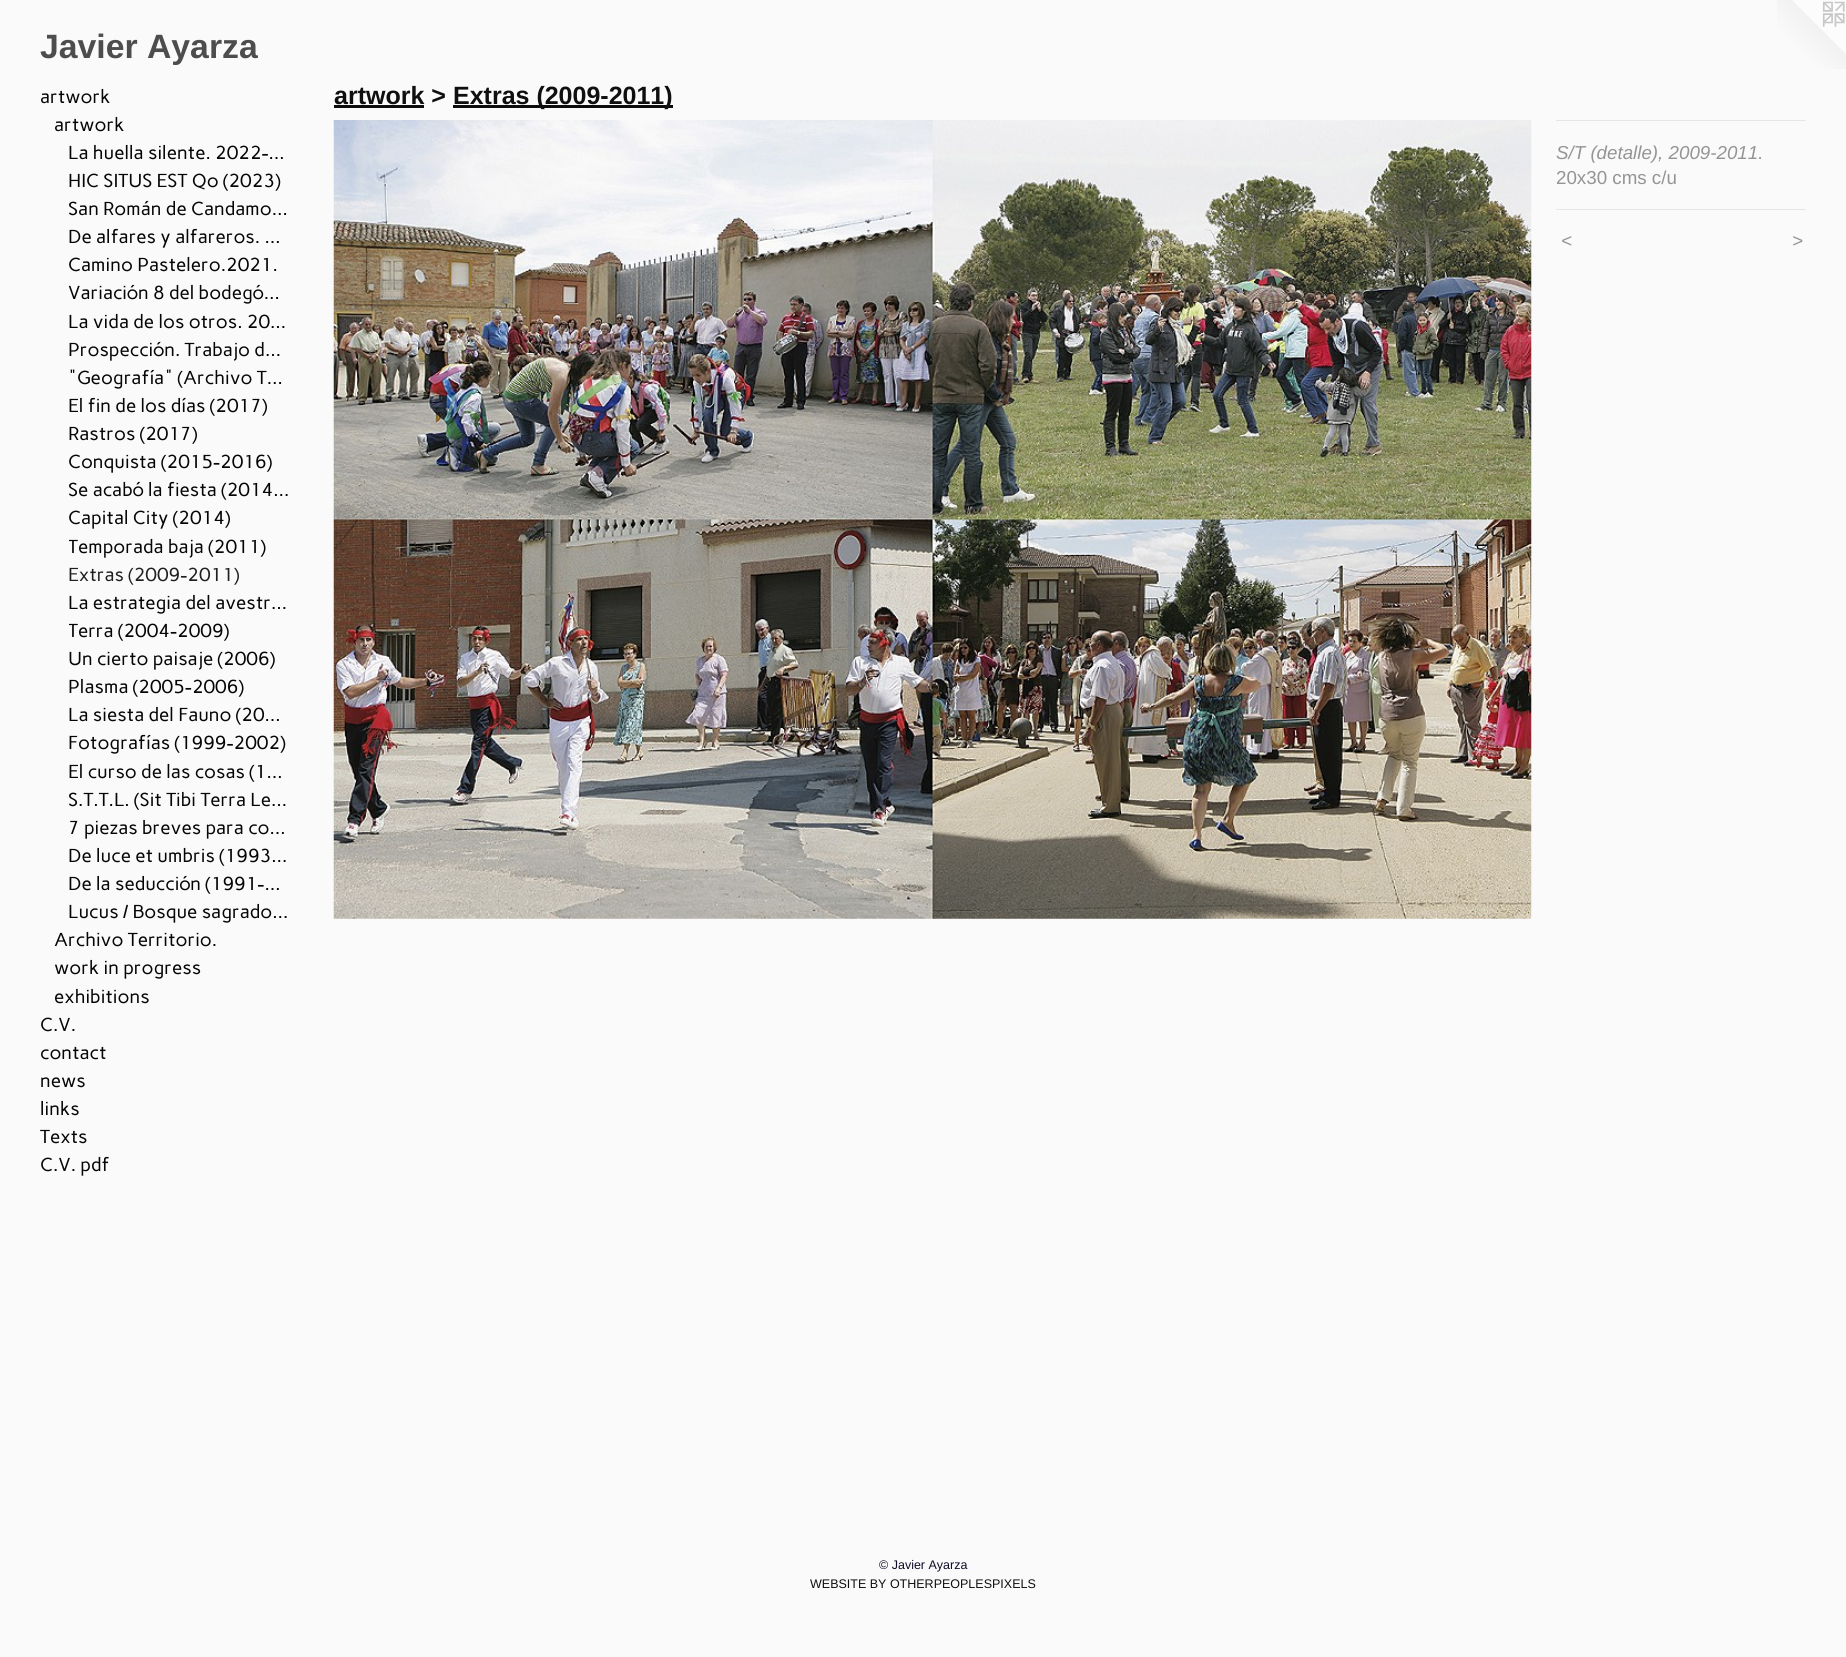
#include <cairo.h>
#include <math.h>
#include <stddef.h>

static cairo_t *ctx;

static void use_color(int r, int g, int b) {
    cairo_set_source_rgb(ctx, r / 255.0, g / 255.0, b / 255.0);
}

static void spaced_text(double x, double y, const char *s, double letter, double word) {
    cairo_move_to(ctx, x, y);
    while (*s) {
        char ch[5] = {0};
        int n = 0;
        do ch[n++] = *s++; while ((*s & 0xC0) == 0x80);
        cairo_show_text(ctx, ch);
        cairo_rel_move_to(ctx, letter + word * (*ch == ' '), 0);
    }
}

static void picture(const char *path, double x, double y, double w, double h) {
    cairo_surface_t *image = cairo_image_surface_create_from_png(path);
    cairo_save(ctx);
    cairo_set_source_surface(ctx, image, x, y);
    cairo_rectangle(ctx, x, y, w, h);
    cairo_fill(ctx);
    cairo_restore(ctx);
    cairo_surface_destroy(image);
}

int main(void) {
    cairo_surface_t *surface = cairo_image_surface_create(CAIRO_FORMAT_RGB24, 1846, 1657);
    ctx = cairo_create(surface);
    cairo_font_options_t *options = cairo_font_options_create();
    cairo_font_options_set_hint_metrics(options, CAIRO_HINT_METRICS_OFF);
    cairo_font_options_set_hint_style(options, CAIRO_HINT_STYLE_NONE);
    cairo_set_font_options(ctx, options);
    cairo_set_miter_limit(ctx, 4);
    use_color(250, 250, 250);
    cairo_paint(ctx);
    cairo_select_font_face(ctx, "Liberation Sans", CAIRO_FONT_SLANT_NORMAL, CAIRO_FONT_WEIGHT_BOLD);
    cairo_set_font_size(ctx, 33.75);
    use_color(77, 77, 77);
    cairo_move_to(ctx, 40, 58);
    cairo_show_text(ctx, "Javier Ayarza");
    picture("img1.png", 1777, 0, 69, 69);
    cairo_select_font_face(ctx, "Carme", CAIRO_FONT_SLANT_NORMAL, CAIRO_FONT_WEIGHT_NORMAL);
    cairo_set_font_size(ctx, 18.75);
    use_color(5, 5, 5);
    cairo_move_to(ctx, 40, 103);
    cairo_show_text(ctx, "artwork");
    cairo_move_to(ctx, 54, 131);
    cairo_show_text(ctx, "artwork");
    cairo_move_to(ctx, 68, 159);
    cairo_show_text(ctx, "La huella silente. 2022-…");
    cairo_move_to(ctx, 68, 187);
    cairo_show_text(ctx, "HIC SITUS EST Qo (2023)");
    cairo_move_to(ctx, 68, 215);
    cairo_show_text(ctx, "San Román de Candamo…");
    cairo_move_to(ctx, 68, 243);
    cairo_show_text(ctx, "De alfares y alfareros. …");
    cairo_move_to(ctx, 68, 271);
    cairo_show_text(ctx, "Camino Pastelero.2021.");
    cairo_move_to(ctx, 68, 299);
    cairo_show_text(ctx, "Variación 8 del bodegó…");
    cairo_move_to(ctx, 68, 328);
    cairo_show_text(ctx, "La vida de los otros. 20…");
    cairo_move_to(ctx, 68, 356);
    cairo_show_text(ctx, "Prospección. Trabajo d…");
    cairo_move_to(ctx, 68, 384);
    cairo_show_text(ctx, "\"Geografía\" (Archivo T…");
    cairo_move_to(ctx, 68, 412);
    cairo_show_text(ctx, "El fin de los días (2017)");
    cairo_move_to(ctx, 68, 440);
    cairo_show_text(ctx, "Rastros (2017)");
    cairo_move_to(ctx, 68, 468);
    cairo_show_text(ctx, "Conquista (2015-2016)");
    cairo_move_to(ctx, 68, 496);
    cairo_show_text(ctx, "Se acabó la fiesta (2014…");
    cairo_move_to(ctx, 68, 524);
    cairo_show_text(ctx, "Capital City (2014)");
    cairo_save(ctx);
    cairo_rectangle(ctx, 69, 533, 221, 28);
    cairo_clip(ctx);
    cairo_move_to(ctx, 68, 553);
    cairo_show_text(ctx, "Temporada baja (2011)");
    cairo_restore(ctx);
    use_color(31, 31, 31);
    cairo_move_to(ctx, 68, 581);
    cairo_show_text(ctx, "Extras (2009-2011)");
    use_color(5, 5, 5);
    cairo_move_to(ctx, 68, 609);
    cairo_show_text(ctx, "La estrategia del avestr…");
    cairo_save(ctx);
    cairo_rectangle(ctx, 69, 618, 221, 27);
    cairo_clip(ctx);
    cairo_move_to(ctx, 68, 637);
    cairo_show_text(ctx, "Terra (2004-2009)");
    cairo_restore(ctx);
    cairo_move_to(ctx, 68, 665);
    cairo_show_text(ctx, "Un cierto paisaje (2006)");
    cairo_move_to(ctx, 68, 693);
    cairo_show_text(ctx, "Plasma (2005-2006)");
    cairo_move_to(ctx, 68, 721);
    cairo_show_text(ctx, "La siesta del Fauno (20…");
    cairo_move_to(ctx, 68, 749);
    cairo_show_text(ctx, "Fotografías (1999-2002)");
    cairo_move_to(ctx, 68, 778);
    cairo_show_text(ctx, "El curso de las cosas (1…");
    cairo_move_to(ctx, 68, 806);
    cairo_show_text(ctx, "S.T.T.L. (Sit Tibi Terra Le…");
    cairo_move_to(ctx, 68, 834);
    cairo_show_text(ctx, "7 piezas breves para co…");
    cairo_move_to(ctx, 68, 862);
    cairo_show_text(ctx, "De luce et umbris (1993…");
    cairo_move_to(ctx, 68, 890);
    cairo_show_text(ctx, "De la seducción (1991-…");
    cairo_move_to(ctx, 68, 918);
    cairo_show_text(ctx, "Lucus / Bosque sagrado…");
    cairo_move_to(ctx, 54, 946);
    cairo_show_text(ctx, "Archivo Territorio.");
    cairo_move_to(ctx, 54, 974);
    cairo_show_text(ctx, "work in progress");
    cairo_move_to(ctx, 54, 1003);
    cairo_show_text(ctx, "exhibitions");
    cairo_move_to(ctx, 40, 1031);
    cairo_show_text(ctx, "C.V.");
    cairo_move_to(ctx, 40, 1059);
    cairo_show_text(ctx, "contact");
    cairo_move_to(ctx, 40, 1087);
    cairo_show_text(ctx, "news");
    cairo_move_to(ctx, 40, 1115);
    cairo_show_text(ctx, "links");
    cairo_move_to(ctx, 40, 1143);
    cairo_show_text(ctx, "Texts");
    cairo_move_to(ctx, 40, 1171);
    cairo_show_text(ctx, "C.V. pdf");
    cairo_select_font_face(ctx, "Arimo", CAIRO_FONT_SLANT_NORMAL, CAIRO_FONT_WEIGHT_BOLD);
    cairo_set_font_size(ctx, 25);
    use_color(15, 15, 16);
    cairo_move_to(ctx, 334, 104);
    cairo_show_text(ctx, "artwork >");
    use_color(12, 12, 14);
    cairo_rectangle(ctx, 334, 105, 90, 3);
    cairo_fill(ctx);
    cairo_rectangle(ctx, 453, 105, 220, 3);
    cairo_fill(ctx);
    use_color(15, 15, 16);
    cairo_move_to(ctx, 453, 104);
    cairo_show_text(ctx, "Extras (2009-2011)");
    picture("img2.png", 333, 120, 1199, 799);
    use_color(230, 230, 230);
    cairo_rectangle(ctx, 1556, 120, 250, 1);
    cairo_fill(ctx);
    cairo_select_font_face(ctx, "Liberation Sans", CAIRO_FONT_SLANT_ITALIC, CAIRO_FONT_WEIGHT_NORMAL);
    cairo_set_font_size(ctx, 18.75);
    use_color(148, 148, 148);
    cairo_move_to(ctx, 1556, 159);
    cairo_show_text(ctx, "S/T (detalle), 2009-2011.");
    cairo_select_font_face(ctx, "Liberation Sans", CAIRO_FONT_SLANT_NORMAL, CAIRO_FONT_WEIGHT_NORMAL);
    cairo_move_to(ctx, 1556, 184);
    cairo_show_text(ctx, "20x30 cms c/u");
    use_color(230, 230, 230);
    cairo_rectangle(ctx, 1556, 209, 250, 1);
    cairo_fill(ctx);
    cairo_select_font_face(ctx, "Liberation Sans", CAIRO_FONT_SLANT_ITALIC, CAIRO_FONT_WEIGHT_NORMAL);
    use_color(148, 148, 148);
    spaced_text(1561, 247, "<", 1, 0);
    spaced_text(1792, 247, ">", 1, 0);
    cairo_select_font_face(ctx, "Liberation Sans", CAIRO_FONT_SLANT_NORMAL, CAIRO_FONT_WEIGHT_NORMAL);
    cairo_set_font_size(ctx, 12.5);
    use_color(16, 12, 39);
    cairo_move_to(ctx, 879, 1569);
    cairo_show_text(ctx, "© Javier Ayarza");
    use_color(15, 15, 16);
    cairo_move_to(ctx, 810, 1588);
    cairo_show_text(ctx, "WEBSITE BY OTHERPEOPLESPIXELS");
    cairo_surface_write_to_png(surface, "result.png");
    cairo_font_options_destroy(options);
    cairo_destroy(ctx);
    cairo_surface_destroy(surface);
    return 0;
}
